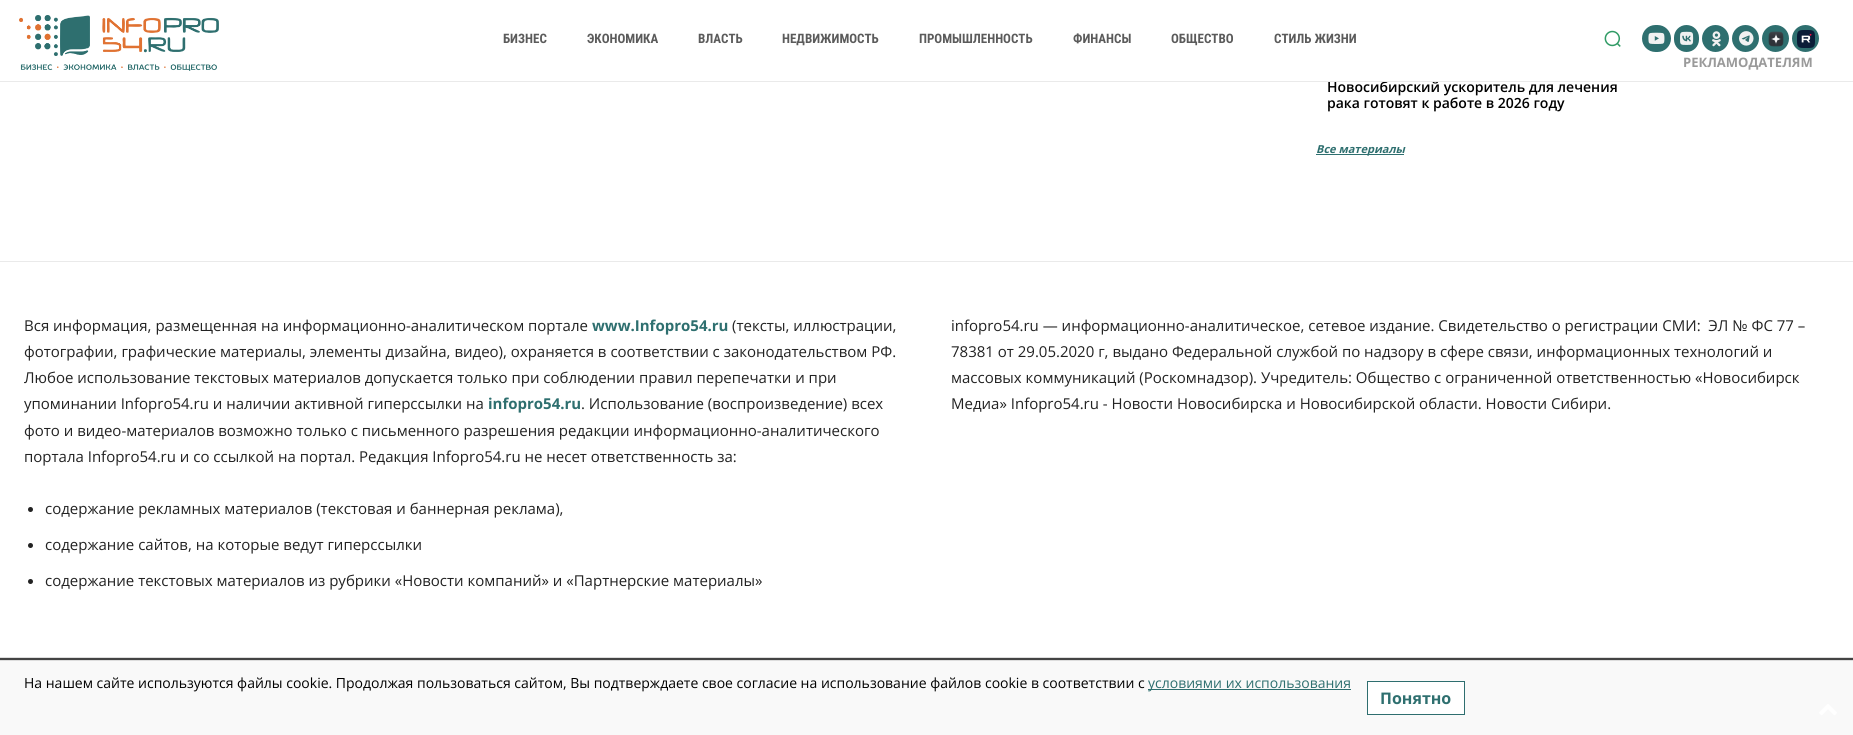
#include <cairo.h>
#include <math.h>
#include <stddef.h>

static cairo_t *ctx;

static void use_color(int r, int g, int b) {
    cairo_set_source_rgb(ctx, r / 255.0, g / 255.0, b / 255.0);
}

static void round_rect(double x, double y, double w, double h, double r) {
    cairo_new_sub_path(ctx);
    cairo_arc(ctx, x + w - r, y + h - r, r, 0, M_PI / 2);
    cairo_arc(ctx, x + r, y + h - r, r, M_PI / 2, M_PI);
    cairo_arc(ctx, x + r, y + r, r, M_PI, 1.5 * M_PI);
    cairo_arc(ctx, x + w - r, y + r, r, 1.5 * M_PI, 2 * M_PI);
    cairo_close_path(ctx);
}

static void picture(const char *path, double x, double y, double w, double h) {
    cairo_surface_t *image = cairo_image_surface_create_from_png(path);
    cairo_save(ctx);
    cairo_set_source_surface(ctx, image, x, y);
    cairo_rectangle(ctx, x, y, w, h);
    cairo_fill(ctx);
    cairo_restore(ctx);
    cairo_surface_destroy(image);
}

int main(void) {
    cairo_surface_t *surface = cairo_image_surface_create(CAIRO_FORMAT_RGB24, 1853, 735);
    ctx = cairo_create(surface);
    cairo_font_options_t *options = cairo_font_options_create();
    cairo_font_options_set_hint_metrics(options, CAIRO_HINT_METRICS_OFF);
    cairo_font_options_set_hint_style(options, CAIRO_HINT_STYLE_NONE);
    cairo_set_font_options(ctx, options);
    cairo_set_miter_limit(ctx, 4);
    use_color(255, 255, 255);
    cairo_paint(ctx);
    cairo_select_font_face(ctx, "Open Sans SemiBold", CAIRO_FONT_SLANT_NORMAL, CAIRO_FONT_WEIGHT_NORMAL);
    cairo_set_font_size(ctx, 14);
    use_color(0, 0, 0);
    cairo_move_to(ctx, 1327, 92);
    cairo_show_text(ctx, "Новосибирский ускоритель для лечения");
    use_color(234, 234, 234);
    cairo_rectangle(ctx, 0, 81, 1853, 1);
    cairo_fill(ctx);
    picture("img1.png", 19, 15, 200, 56);
    cairo_select_font_face(ctx, "Roboto Condensed", CAIRO_FONT_SLANT_NORMAL, CAIRO_FONT_WEIGHT_BOLD);
    cairo_set_font_size(ctx, 13);
    use_color(91, 91, 91);
    cairo_move_to(ctx, 503, 43);
    cairo_show_text(ctx, "БИЗНЕС");
    cairo_move_to(ctx, 587, 43);
    cairo_show_text(ctx, "ЭКОНОМИКА");
    cairo_move_to(ctx, 698, 43);
    cairo_show_text(ctx, "ВЛАСТЬ");
    cairo_move_to(ctx, 782, 43);
    cairo_show_text(ctx, "НЕДВИЖИМОСТЬ");
    cairo_move_to(ctx, 919, 43);
    cairo_show_text(ctx, "ПРОМЫШЛЕННОСТЬ");
    cairo_move_to(ctx, 1073, 43);
    cairo_show_text(ctx, "ФИНАНСЫ");
    cairo_move_to(ctx, 1171, 43);
    cairo_show_text(ctx, "ОБЩЕСТВО");
    cairo_move_to(ctx, 1274, 43);
    cairo_show_text(ctx, "СТИЛЬ ЖИЗНИ");
    picture("img2.png", 1604, 30, 17, 17);
    use_color(46, 111, 111);
    round_rect(1642, 25, 29, 27, 13.5);
    cairo_fill(ctx);
    picture("img3.png", 1648, 32, 17, 12);
    round_rect(1674, 25, 25, 27, 12.5);
    cairo_fill(ctx);
    picture("img4.png", 1680, 31, 14, 14);
    cairo_arc(ctx, 1715.5, 38.5, 13.5, 0, 2 * M_PI);
    cairo_fill(ctx);
    picture("img5.png", 1712, 31, 9, 16);
    cairo_arc(ctx, 1745.5, 38.5, 13.5, 0, 2 * M_PI);
    cairo_fill(ctx);
    picture("img6.png", 1739, 31, 15, 15);
    cairo_arc(ctx, 1775.5, 38.5, 13.5, 0, 2 * M_PI);
    cairo_fill(ctx);
    picture("img7.png", 1768, 31, 16, 16);
    cairo_arc(ctx, 1805.5, 38.5, 13.5, 0, 2 * M_PI);
    cairo_fill(ctx);
    picture("img8.png", 1797, 30, 18, 18);
    cairo_select_font_face(ctx, "Open Sans", CAIRO_FONT_SLANT_NORMAL, CAIRO_FONT_WEIGHT_BOLD);
    use_color(154, 154, 154);
    cairo_move_to(ctx, 1683, 67);
    cairo_show_text(ctx, "РЕКЛАМОДАТЕЛЯМ");
    cairo_select_font_face(ctx, "Open Sans SemiBold", CAIRO_FONT_SLANT_NORMAL, CAIRO_FONT_WEIGHT_NORMAL);
    cairo_set_font_size(ctx, 14);
    use_color(0, 0, 0);
    cairo_move_to(ctx, 1327, 108);
    cairo_show_text(ctx, "рака готовят к работе в 2026 году");
    use_color(46, 111, 111);
    cairo_rectangle(ctx, 1316, 154, 88, 1);
    cairo_fill(ctx);
    cairo_select_font_face(ctx, "Open Sans", CAIRO_FONT_SLANT_ITALIC, CAIRO_FONT_WEIGHT_BOLD);
    cairo_set_font_size(ctx, 11);
    cairo_move_to(ctx, 1316, 153);
    cairo_show_text(ctx, "Все материалы");
    use_color(234, 234, 234);
    cairo_rectangle(ctx, 0, 261, 1853, 1);
    cairo_fill(ctx);
    cairo_select_font_face(ctx, "Open Sans", CAIRO_FONT_SLANT_NORMAL, CAIRO_FONT_WEIGHT_NORMAL);
    cairo_set_font_size(ctx, 15);
    use_color(34, 34, 34);
    cairo_move_to(ctx, 24, 331);
    cairo_show_text(ctx, "Вся информация, размещенная на информационно-аналитическом портале");
    cairo_select_font_face(ctx, "Open Sans", CAIRO_FONT_SLANT_NORMAL, CAIRO_FONT_WEIGHT_BOLD);
    use_color(46, 111, 111);
    cairo_move_to(ctx, 592, 331);
    cairo_show_text(ctx, "www.Infopro54.ru");
    cairo_select_font_face(ctx, "Open Sans", CAIRO_FONT_SLANT_NORMAL, CAIRO_FONT_WEIGHT_NORMAL);
    use_color(34, 34, 34);
    cairo_move_to(ctx, 732, 331);
    cairo_show_text(ctx, "(тексты, иллюстрации,");
    cairo_move_to(ctx, 24, 357);
    cairo_show_text(ctx, "фотографии, графические материалы, элементы дизайна, видео), охраняется в соответствии с законодательством РФ.");
    cairo_move_to(ctx, 24, 383);
    cairo_show_text(ctx, "Любое использование текстовых материалов допускается только при соблюдении правил перепечатки и при");
    cairo_move_to(ctx, 24, 409);
    cairo_show_text(ctx, "упоминании Infopro54.ru и наличии активной гиперссылки на");
    cairo_select_font_face(ctx, "Open Sans", CAIRO_FONT_SLANT_NORMAL, CAIRO_FONT_WEIGHT_BOLD);
    use_color(46, 111, 111);
    cairo_move_to(ctx, 488, 409);
    cairo_show_text(ctx, "infopro54.ru");
    cairo_select_font_face(ctx, "Open Sans", CAIRO_FONT_SLANT_NORMAL, CAIRO_FONT_WEIGHT_NORMAL);
    use_color(34, 34, 34);
    cairo_move_to(ctx, 581, 409);
    cairo_show_text(ctx, ". Использование (воспроизведение) всех");
    cairo_move_to(ctx, 24, 436);
    cairo_show_text(ctx, "фото и видео-материалов возможно только с письменного разрешения редакции информационно-аналитического");
    cairo_move_to(ctx, 24, 462);
    cairo_show_text(ctx, "портала Infopro54.ru и со ссылкой на портал. Редакция Infopro54.ru не несет ответственность за:");
    cairo_new_path(ctx);
    cairo_arc(ctx, 30.5, 509.5, 2.5, 0, 2 * M_PI);
    cairo_fill(ctx);
    cairo_move_to(ctx, 45, 514);
    cairo_show_text(ctx, "содержание рекламных материалов (текстовая и баннерная реклама),");
    cairo_new_path(ctx);
    cairo_arc(ctx, 30.5, 545.5, 2.5, 0, 2 * M_PI);
    cairo_fill(ctx);
    cairo_move_to(ctx, 45, 550);
    cairo_show_text(ctx, "содержание сайтов, на которые ведут гиперссылки");
    cairo_new_path(ctx);
    cairo_arc(ctx, 30.5, 581.5, 2.5, 0, 2 * M_PI);
    cairo_fill(ctx);
    cairo_move_to(ctx, 45, 586);
    cairo_show_text(ctx, "содержание текстовых материалов из рубрики «Новости компаний» и «Партнерские материалы»");
    cairo_move_to(ctx, 951, 331);
    cairo_show_text(ctx, "infopro54.ru — информационно-аналитическое, сетевое издание. Свидетельство о регистрации СМИ:  ЭЛ № ФС 77 –");
    cairo_move_to(ctx, 951, 357);
    cairo_show_text(ctx, "78381 от 29.05.2020 г, выдано Федеральной службой по надзору в сфере связи, информационных технологий и");
    cairo_move_to(ctx, 951, 383);
    cairo_show_text(ctx, "массовых коммуникаций (Роскомнадзор). Учредитель: Общество с ограниченной ответственностью «Новосибирск");
    cairo_move_to(ctx, 951, 409);
    cairo_show_text(ctx, "Медиа» Infopro54.ru - Новости Новосибирска и Новосибирской области. Новости Сибири.");
    use_color(221, 221, 221);
    cairo_rectangle(ctx, 0, 657, 1853, 1);
    cairo_fill(ctx);
    use_color(67, 67, 67);
    cairo_rectangle(ctx, 0, 658, 1853, 2);
    cairo_fill(ctx);
    use_color(249, 249, 249);
    cairo_rectangle(ctx, 0, 661, 1853, 74);
    cairo_fill(ctx);
    use_color(221, 221, 221);
    cairo_rectangle(ctx, 0, 660, 1853, 1);
    cairo_fill(ctx);
    cairo_set_font_size(ctx, 14);
    use_color(0, 0, 0);
    cairo_move_to(ctx, 24, 688);
    cairo_show_text(ctx, "На нашем сайте используются файлы cookie. Продолжая пользоваться сайтом, Вы подтверждаете свое согласие на использование файлов cookie в соответствии с");
    use_color(46, 110, 111);
    cairo_rectangle(ctx, 1148, 689, 203, 1);
    cairo_fill(ctx);
    use_color(46, 111, 111);
    cairo_move_to(ctx, 1148, 688);
    cairo_show_text(ctx, "условиями их использования");
    use_color(255, 255, 255);
    cairo_rectangle(ctx, 1367.5, 681.5, 97, 33);
    cairo_fill_preserve(ctx);
    use_color(46, 110, 111);
    cairo_set_line_width(ctx, 1);
    cairo_stroke(ctx);
    cairo_select_font_face(ctx, "Open Sans", CAIRO_FONT_SLANT_NORMAL, CAIRO_FONT_WEIGHT_BOLD);
    cairo_set_font_size(ctx, 16);
    use_color(46, 111, 111);
    cairo_move_to(ctx, 1380, 704);
    cairo_show_text(ctx, "Понятно");
    picture("img9.png", 1819, 703, 18, 13);
    cairo_surface_write_to_png(surface, "result.png");
    cairo_font_options_destroy(options);
    cairo_destroy(ctx);
    cairo_surface_destroy(surface);
    return 0;
}
